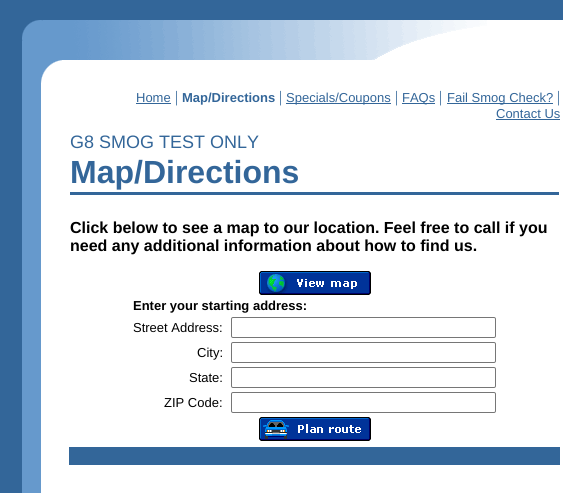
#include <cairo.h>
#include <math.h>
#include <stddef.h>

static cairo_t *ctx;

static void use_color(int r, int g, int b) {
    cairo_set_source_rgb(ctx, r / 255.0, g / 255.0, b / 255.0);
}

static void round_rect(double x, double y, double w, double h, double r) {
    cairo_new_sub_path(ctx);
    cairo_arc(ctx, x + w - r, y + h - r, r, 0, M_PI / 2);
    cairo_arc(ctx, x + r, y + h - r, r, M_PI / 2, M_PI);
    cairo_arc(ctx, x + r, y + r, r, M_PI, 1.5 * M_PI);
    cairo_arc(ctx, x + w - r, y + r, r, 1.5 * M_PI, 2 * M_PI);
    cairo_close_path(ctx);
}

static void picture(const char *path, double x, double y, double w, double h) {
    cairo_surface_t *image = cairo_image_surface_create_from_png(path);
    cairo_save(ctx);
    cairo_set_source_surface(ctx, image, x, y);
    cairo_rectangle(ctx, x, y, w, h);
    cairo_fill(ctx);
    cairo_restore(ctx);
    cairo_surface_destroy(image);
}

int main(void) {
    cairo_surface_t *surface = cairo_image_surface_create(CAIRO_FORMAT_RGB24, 563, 493);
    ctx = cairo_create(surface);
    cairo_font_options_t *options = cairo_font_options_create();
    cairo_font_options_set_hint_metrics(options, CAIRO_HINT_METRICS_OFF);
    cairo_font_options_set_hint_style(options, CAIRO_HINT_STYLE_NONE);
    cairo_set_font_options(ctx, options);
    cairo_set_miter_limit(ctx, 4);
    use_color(255, 255, 255);
    cairo_paint(ctx);
    picture("img1.png", 0, 20, 41, 473);
    use_color(51, 102, 153);
    cairo_rectangle(ctx, 0, 0, 563, 20);
    cairo_fill(ctx);
    picture("img2.png", 22, 20, 40, 63);
    picture("img3.png", 62, 20, 425, 40);
    cairo_select_font_face(ctx, "Liberation Sans", CAIRO_FONT_SLANT_NORMAL, CAIRO_FONT_WEIGHT_NORMAL);
    cairo_set_font_size(ctx, 13);
    cairo_move_to(ctx, 136, 102);
    cairo_show_text(ctx, "Home");
    cairo_rectangle(ctx, 136, 103, 35, 1);
    cairo_fill(ctx);
    cairo_select_font_face(ctx, "Liberation Serif", CAIRO_FONT_SLANT_NORMAL, CAIRO_FONT_WEIGHT_NORMAL);
    cairo_set_font_size(ctx, 16);
    cairo_move_to(ctx, 175, 102);
    cairo_show_text(ctx, "|");
    cairo_select_font_face(ctx, "Liberation Sans", CAIRO_FONT_SLANT_NORMAL, CAIRO_FONT_WEIGHT_BOLD);
    cairo_set_font_size(ctx, 13);
    cairo_move_to(ctx, 182, 102);
    cairo_show_text(ctx, "Map/Directions");
    cairo_select_font_face(ctx, "Liberation Serif", CAIRO_FONT_SLANT_NORMAL, CAIRO_FONT_WEIGHT_NORMAL);
    cairo_set_font_size(ctx, 16);
    cairo_move_to(ctx, 279, 102);
    cairo_show_text(ctx, "|");
    cairo_rectangle(ctx, 286, 103, 105, 1);
    cairo_fill(ctx);
    cairo_select_font_face(ctx, "Liberation Sans", CAIRO_FONT_SLANT_NORMAL, CAIRO_FONT_WEIGHT_NORMAL);
    cairo_set_font_size(ctx, 13);
    cairo_move_to(ctx, 286, 102);
    cairo_show_text(ctx, "Specials/Coupons");
    cairo_select_font_face(ctx, "Liberation Serif", CAIRO_FONT_SLANT_NORMAL, CAIRO_FONT_WEIGHT_NORMAL);
    cairo_set_font_size(ctx, 16);
    cairo_move_to(ctx, 395, 102);
    cairo_show_text(ctx, "|");
    cairo_rectangle(ctx, 402, 103, 33, 1);
    cairo_fill(ctx);
    cairo_select_font_face(ctx, "Liberation Sans", CAIRO_FONT_SLANT_NORMAL, CAIRO_FONT_WEIGHT_NORMAL);
    cairo_set_font_size(ctx, 13);
    cairo_move_to(ctx, 402, 102);
    cairo_show_text(ctx, "FAQs");
    cairo_select_font_face(ctx, "Liberation Serif", CAIRO_FONT_SLANT_NORMAL, CAIRO_FONT_WEIGHT_NORMAL);
    cairo_set_font_size(ctx, 16);
    cairo_move_to(ctx, 439, 102);
    cairo_show_text(ctx, "|");
    cairo_rectangle(ctx, 447, 103, 106, 1);
    cairo_fill(ctx);
    cairo_select_font_face(ctx, "Liberation Sans", CAIRO_FONT_SLANT_NORMAL, CAIRO_FONT_WEIGHT_NORMAL);
    cairo_set_font_size(ctx, 13);
    cairo_move_to(ctx, 447, 102);
    cairo_show_text(ctx, "Fail Smog Check?");
    cairo_select_font_face(ctx, "Liberation Serif", CAIRO_FONT_SLANT_NORMAL, CAIRO_FONT_WEIGHT_NORMAL);
    cairo_set_font_size(ctx, 16);
    cairo_move_to(ctx, 557, 102);
    cairo_show_text(ctx, "|");
    cairo_select_font_face(ctx, "Liberation Sans", CAIRO_FONT_SLANT_NORMAL, CAIRO_FONT_WEIGHT_NORMAL);
    cairo_set_font_size(ctx, 13);
    cairo_move_to(ctx, 496, 118);
    cairo_show_text(ctx, "Contact Us");
    cairo_rectangle(ctx, 496, 119, 64, 1);
    cairo_fill(ctx);
    cairo_set_font_size(ctx, 18);
    cairo_move_to(ctx, 70, 148);
    cairo_show_text(ctx, "G8 SMOG TEST ONLY");
    cairo_select_font_face(ctx, "Liberation Sans", CAIRO_FONT_SLANT_NORMAL, CAIRO_FONT_WEIGHT_BOLD);
    cairo_set_font_size(ctx, 32);
    cairo_move_to(ctx, 70, 183);
    cairo_show_text(ctx, "Map/Directions");
    cairo_rectangle(ctx, 70, 192, 489, 3);
    cairo_fill(ctx);
    cairo_set_font_size(ctx, 16);
    use_color(0, 0, 0);
    cairo_move_to(ctx, 70, 233);
    cairo_show_text(ctx, "Click below to see a map to our location. Feel free to call if you");
    cairo_move_to(ctx, 70, 251);
    cairo_show_text(ctx, "need any additional information about how to find us.");
    picture("img4.png", 259, 271, 112, 24);
    cairo_set_font_size(ctx, 13);
    cairo_move_to(ctx, 133, 310);
    cairo_show_text(ctx, "Enter your starting address:");
    cairo_select_font_face(ctx, "Liberation Sans", CAIRO_FONT_SLANT_NORMAL, CAIRO_FONT_WEIGHT_NORMAL);
    cairo_move_to(ctx, 133, 332);
    cairo_show_text(ctx, "Street Address:");
    round_rect(231.5, 317.5, 264, 20, 1.5);
    use_color(118, 118, 118);
    cairo_set_line_width(ctx, 1);
    cairo_stroke(ctx);
    use_color(0, 0, 0);
    cairo_move_to(ctx, 197, 357);
    cairo_show_text(ctx, "City:");
    round_rect(231.5, 342.5, 264, 20, 1.5);
    use_color(118, 118, 118);
    cairo_stroke(ctx);
    use_color(0, 0, 0);
    cairo_move_to(ctx, 189, 382);
    cairo_show_text(ctx, "State:");
    round_rect(231.5, 367.5, 264, 20, 1.5);
    use_color(118, 118, 118);
    cairo_stroke(ctx);
    use_color(0, 0, 0);
    cairo_move_to(ctx, 164, 407);
    cairo_show_text(ctx, "ZIP Code:");
    round_rect(231.5, 392.5, 264, 20, 1.5);
    use_color(118, 118, 118);
    cairo_stroke(ctx);
    picture("img5.png", 259, 417, 112, 24);
    use_color(51, 102, 153);
    cairo_rectangle(ctx, 69, 447, 491, 18);
    cairo_fill(ctx);
    cairo_surface_write_to_png(surface, "result.png");
    cairo_font_options_destroy(options);
    cairo_destroy(ctx);
    cairo_surface_destroy(surface);
    return 0;
}
